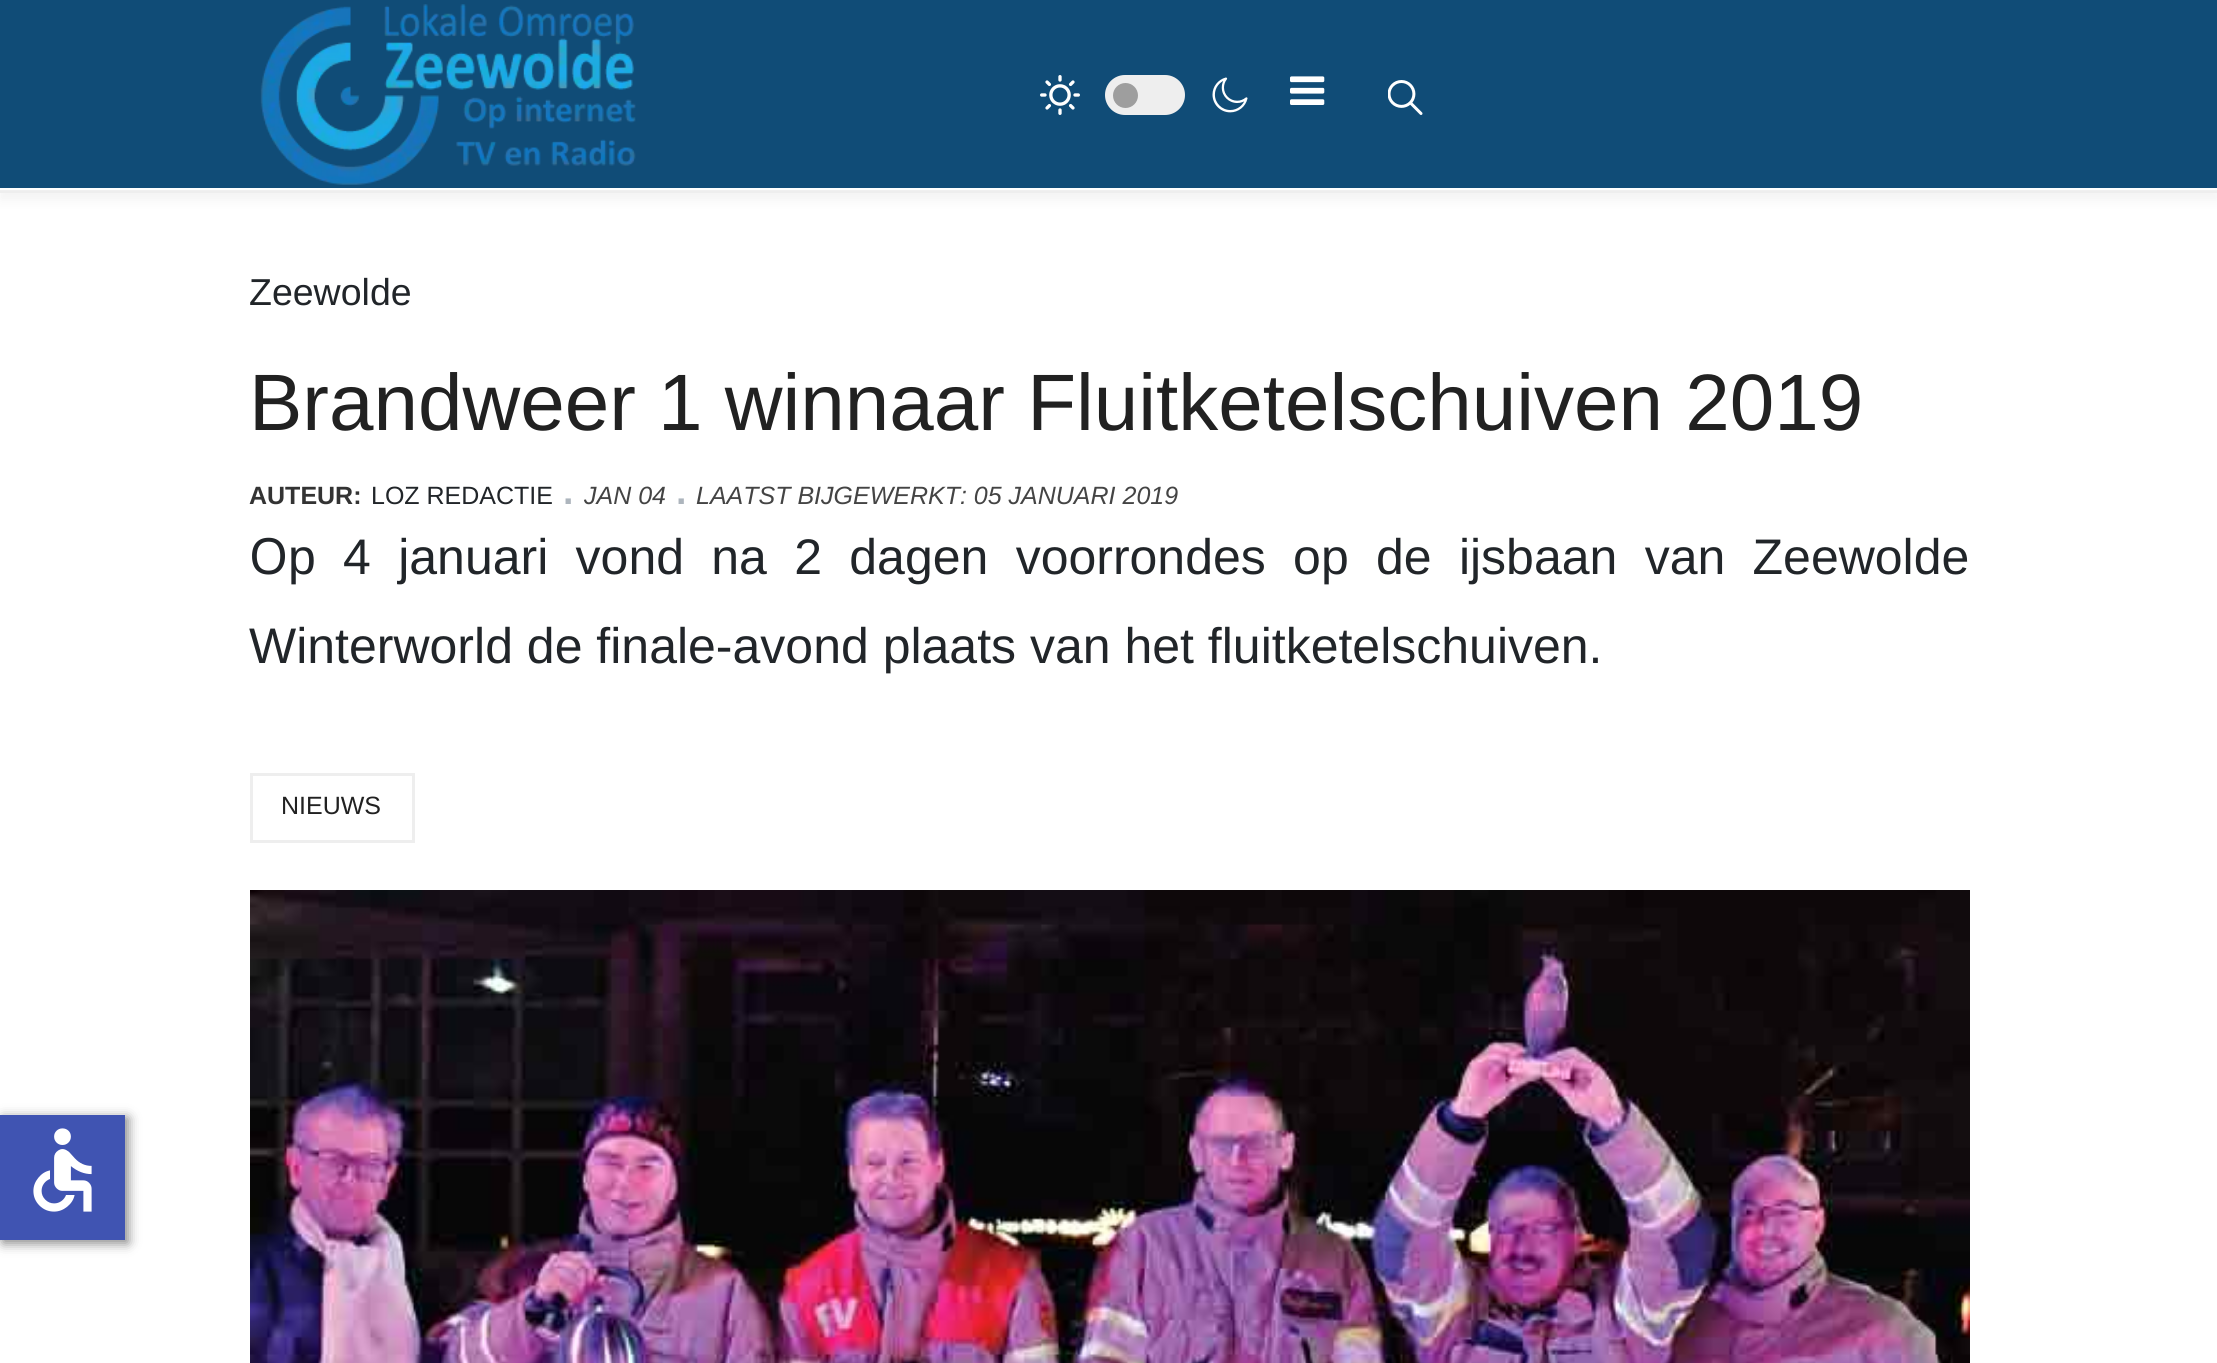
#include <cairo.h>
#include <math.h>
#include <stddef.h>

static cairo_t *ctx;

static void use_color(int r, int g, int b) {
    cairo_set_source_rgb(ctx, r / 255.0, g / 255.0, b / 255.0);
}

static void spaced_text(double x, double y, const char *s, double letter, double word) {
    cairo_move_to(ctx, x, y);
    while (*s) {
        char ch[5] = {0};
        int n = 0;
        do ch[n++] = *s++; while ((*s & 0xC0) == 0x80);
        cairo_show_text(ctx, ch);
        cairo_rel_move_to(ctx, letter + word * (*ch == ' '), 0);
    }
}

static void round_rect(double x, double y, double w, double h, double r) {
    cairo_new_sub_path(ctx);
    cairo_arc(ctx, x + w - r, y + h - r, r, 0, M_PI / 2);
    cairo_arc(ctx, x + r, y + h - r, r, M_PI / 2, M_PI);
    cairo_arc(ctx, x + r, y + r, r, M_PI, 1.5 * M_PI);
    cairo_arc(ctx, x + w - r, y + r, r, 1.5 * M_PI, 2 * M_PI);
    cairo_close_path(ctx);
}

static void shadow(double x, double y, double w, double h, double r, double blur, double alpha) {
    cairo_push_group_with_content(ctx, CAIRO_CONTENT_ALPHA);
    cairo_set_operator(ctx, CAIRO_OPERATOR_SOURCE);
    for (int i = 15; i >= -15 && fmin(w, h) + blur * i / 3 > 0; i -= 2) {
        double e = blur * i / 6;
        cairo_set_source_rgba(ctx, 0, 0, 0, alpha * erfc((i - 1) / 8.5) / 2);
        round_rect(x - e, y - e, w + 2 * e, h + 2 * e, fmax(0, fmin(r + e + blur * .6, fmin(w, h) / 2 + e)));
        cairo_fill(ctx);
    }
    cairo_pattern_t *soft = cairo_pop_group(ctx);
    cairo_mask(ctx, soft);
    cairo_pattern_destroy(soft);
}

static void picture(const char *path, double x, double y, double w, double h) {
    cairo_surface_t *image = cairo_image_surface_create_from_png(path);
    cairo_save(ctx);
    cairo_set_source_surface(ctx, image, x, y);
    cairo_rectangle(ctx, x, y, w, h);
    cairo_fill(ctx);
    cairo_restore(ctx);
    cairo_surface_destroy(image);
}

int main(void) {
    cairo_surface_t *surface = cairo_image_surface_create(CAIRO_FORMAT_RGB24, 2217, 1363);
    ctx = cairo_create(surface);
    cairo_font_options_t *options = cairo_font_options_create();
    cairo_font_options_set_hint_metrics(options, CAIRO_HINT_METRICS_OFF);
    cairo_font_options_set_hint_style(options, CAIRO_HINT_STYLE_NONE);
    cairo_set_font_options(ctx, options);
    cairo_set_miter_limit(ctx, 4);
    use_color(255, 255, 255);
    cairo_paint(ctx);
    use_color(0, 0, 0);
    shadow(0, 8, 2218, 192, 0, 6, 0.05);
    use_color(255, 255, 255);
    cairo_rectangle(ctx, 0, 188, 2217, 2);
    cairo_fill(ctx);
    use_color(238, 238, 238);
    cairo_rectangle(ctx, 0, 191, 2217, 2);
    cairo_fill(ctx);
    use_color(240, 240, 240);
    cairo_rectangle(ctx, 0, 190, 2217, 1);
    cairo_fill(ctx);
    use_color(16, 76, 119);
    cairo_rectangle(ctx, 0, 0, 2217, 188);
    cairo_fill(ctx);
    picture("img1.png", 260, 4, 376, 181);
    picture("img2.png", 1040, 75, 40, 40);
    use_color(238, 238, 238);
    round_rect(1105, 75, 80, 40, 20);
    cairo_fill(ctx);
    use_color(158, 158, 158);
    cairo_arc(ctx, 1125.5, 95.5, 12.5, 0, 2 * M_PI);
    cairo_fill(ctx);
    picture("img3.png", 1212, 77, 36, 36);
    picture("img4.png", 1290, 76, 35, 29);
    picture("img5.png", 1388, 80, 35, 35);
    cairo_select_font_face(ctx, "Liberation Sans", CAIRO_FONT_SLANT_NORMAL, CAIRO_FONT_WEIGHT_NORMAL);
    cairo_set_font_size(ctx, 37.5);
    use_color(33, 37, 41);
    cairo_move_to(ctx, 249, 305);
    cairo_show_text(ctx, "Zeewolde");
    cairo_set_font_size(ctx, 80);
    use_color(33, 33, 33);
    cairo_move_to(ctx, 249, 430);
    cairo_show_text(ctx, "Brandweer 1 winnaar Fluitketelschuiven 2019");
    cairo_select_font_face(ctx, "Liberation Sans", CAIRO_FONT_SLANT_NORMAL, CAIRO_FONT_WEIGHT_BOLD);
    cairo_set_font_size(ctx, 25);
    use_color(51, 51, 51);
    cairo_move_to(ctx, 249, 504);
    cairo_show_text(ctx, "AUTEUR:");
    cairo_select_font_face(ctx, "Liberation Sans", CAIRO_FONT_SLANT_NORMAL, CAIRO_FONT_WEIGHT_NORMAL);
    use_color(33, 37, 41);
    cairo_move_to(ctx, 371, 504);
    cairo_show_text(ctx, "LOZ REDACTIE");
    cairo_select_font_face(ctx, "Liberation Sans", CAIRO_FONT_SLANT_NORMAL, CAIRO_FONT_WEIGHT_BOLD);
    cairo_set_font_size(ctx, 37.5);
    use_color(173, 181, 189);
    cairo_move_to(ctx, 563, 504);
    cairo_show_text(ctx, ".");
    cairo_select_font_face(ctx, "Liberation Sans", CAIRO_FONT_SLANT_ITALIC, CAIRO_FONT_WEIGHT_NORMAL);
    cairo_set_font_size(ctx, 25);
    use_color(68, 68, 68);
    cairo_move_to(ctx, 584, 504);
    cairo_show_text(ctx, "JAN 04");
    cairo_select_font_face(ctx, "Liberation Sans", CAIRO_FONT_SLANT_NORMAL, CAIRO_FONT_WEIGHT_BOLD);
    cairo_set_font_size(ctx, 37.5);
    use_color(173, 181, 189);
    cairo_move_to(ctx, 676, 504);
    cairo_show_text(ctx, ".");
    cairo_select_font_face(ctx, "Liberation Sans", CAIRO_FONT_SLANT_ITALIC, CAIRO_FONT_WEIGHT_NORMAL);
    cairo_set_font_size(ctx, 25);
    use_color(68, 68, 68);
    cairo_move_to(ctx, 696, 504);
    cairo_show_text(ctx, "LAATST BIJGEWERKT: 05 JANUARI 2019");
    cairo_select_font_face(ctx, "Noto Sans", CAIRO_FONT_SLANT_NORMAL, CAIRO_FONT_WEIGHT_NORMAL);
    cairo_set_font_size(ctx, 50);
    use_color(33, 37, 41);
    cairo_move_to(ctx, 249, 574);
    cairo_show_text(ctx, "O");
    cairo_select_font_face(ctx, "Liberation Sans", CAIRO_FONT_SLANT_NORMAL, CAIRO_FONT_WEIGHT_NORMAL);
    spaced_text(288, 574, "p 4 januari vond na 2 dagen voorrondes op de ijsbaan van Zeewolde", 0, 13.4);
    cairo_move_to(ctx, 249, 663);
    cairo_show_text(ctx, "Winterworld de finale-avond plaats van het fluitketelschuiven.");
    cairo_rectangle(ctx, 251.5, 774.5, 162, 67);
    use_color(238, 238, 238);
    cairo_set_line_width(ctx, 3);
    cairo_stroke(ctx);
    cairo_set_font_size(ctx, 25);
    use_color(33, 33, 33);
    cairo_move_to(ctx, 281, 814);
    cairo_show_text(ctx, "NIEUWS");
    picture("img6.png", 250, 890, 1720, 473);
    use_color(0, 0, 0);
    shadow(3, 1118, 125, 125, 0, 6, 0.5);
    use_color(64, 84, 178);
    cairo_rectangle(ctx, 0, 1115, 125, 125);
    cairo_fill(ctx);
    picture("img7.png", 33, 1128, 59, 84);
    cairo_surface_write_to_png(surface, "result.png");
    cairo_font_options_destroy(options);
    cairo_destroy(ctx);
    cairo_surface_destroy(surface);
    return 0;
}
